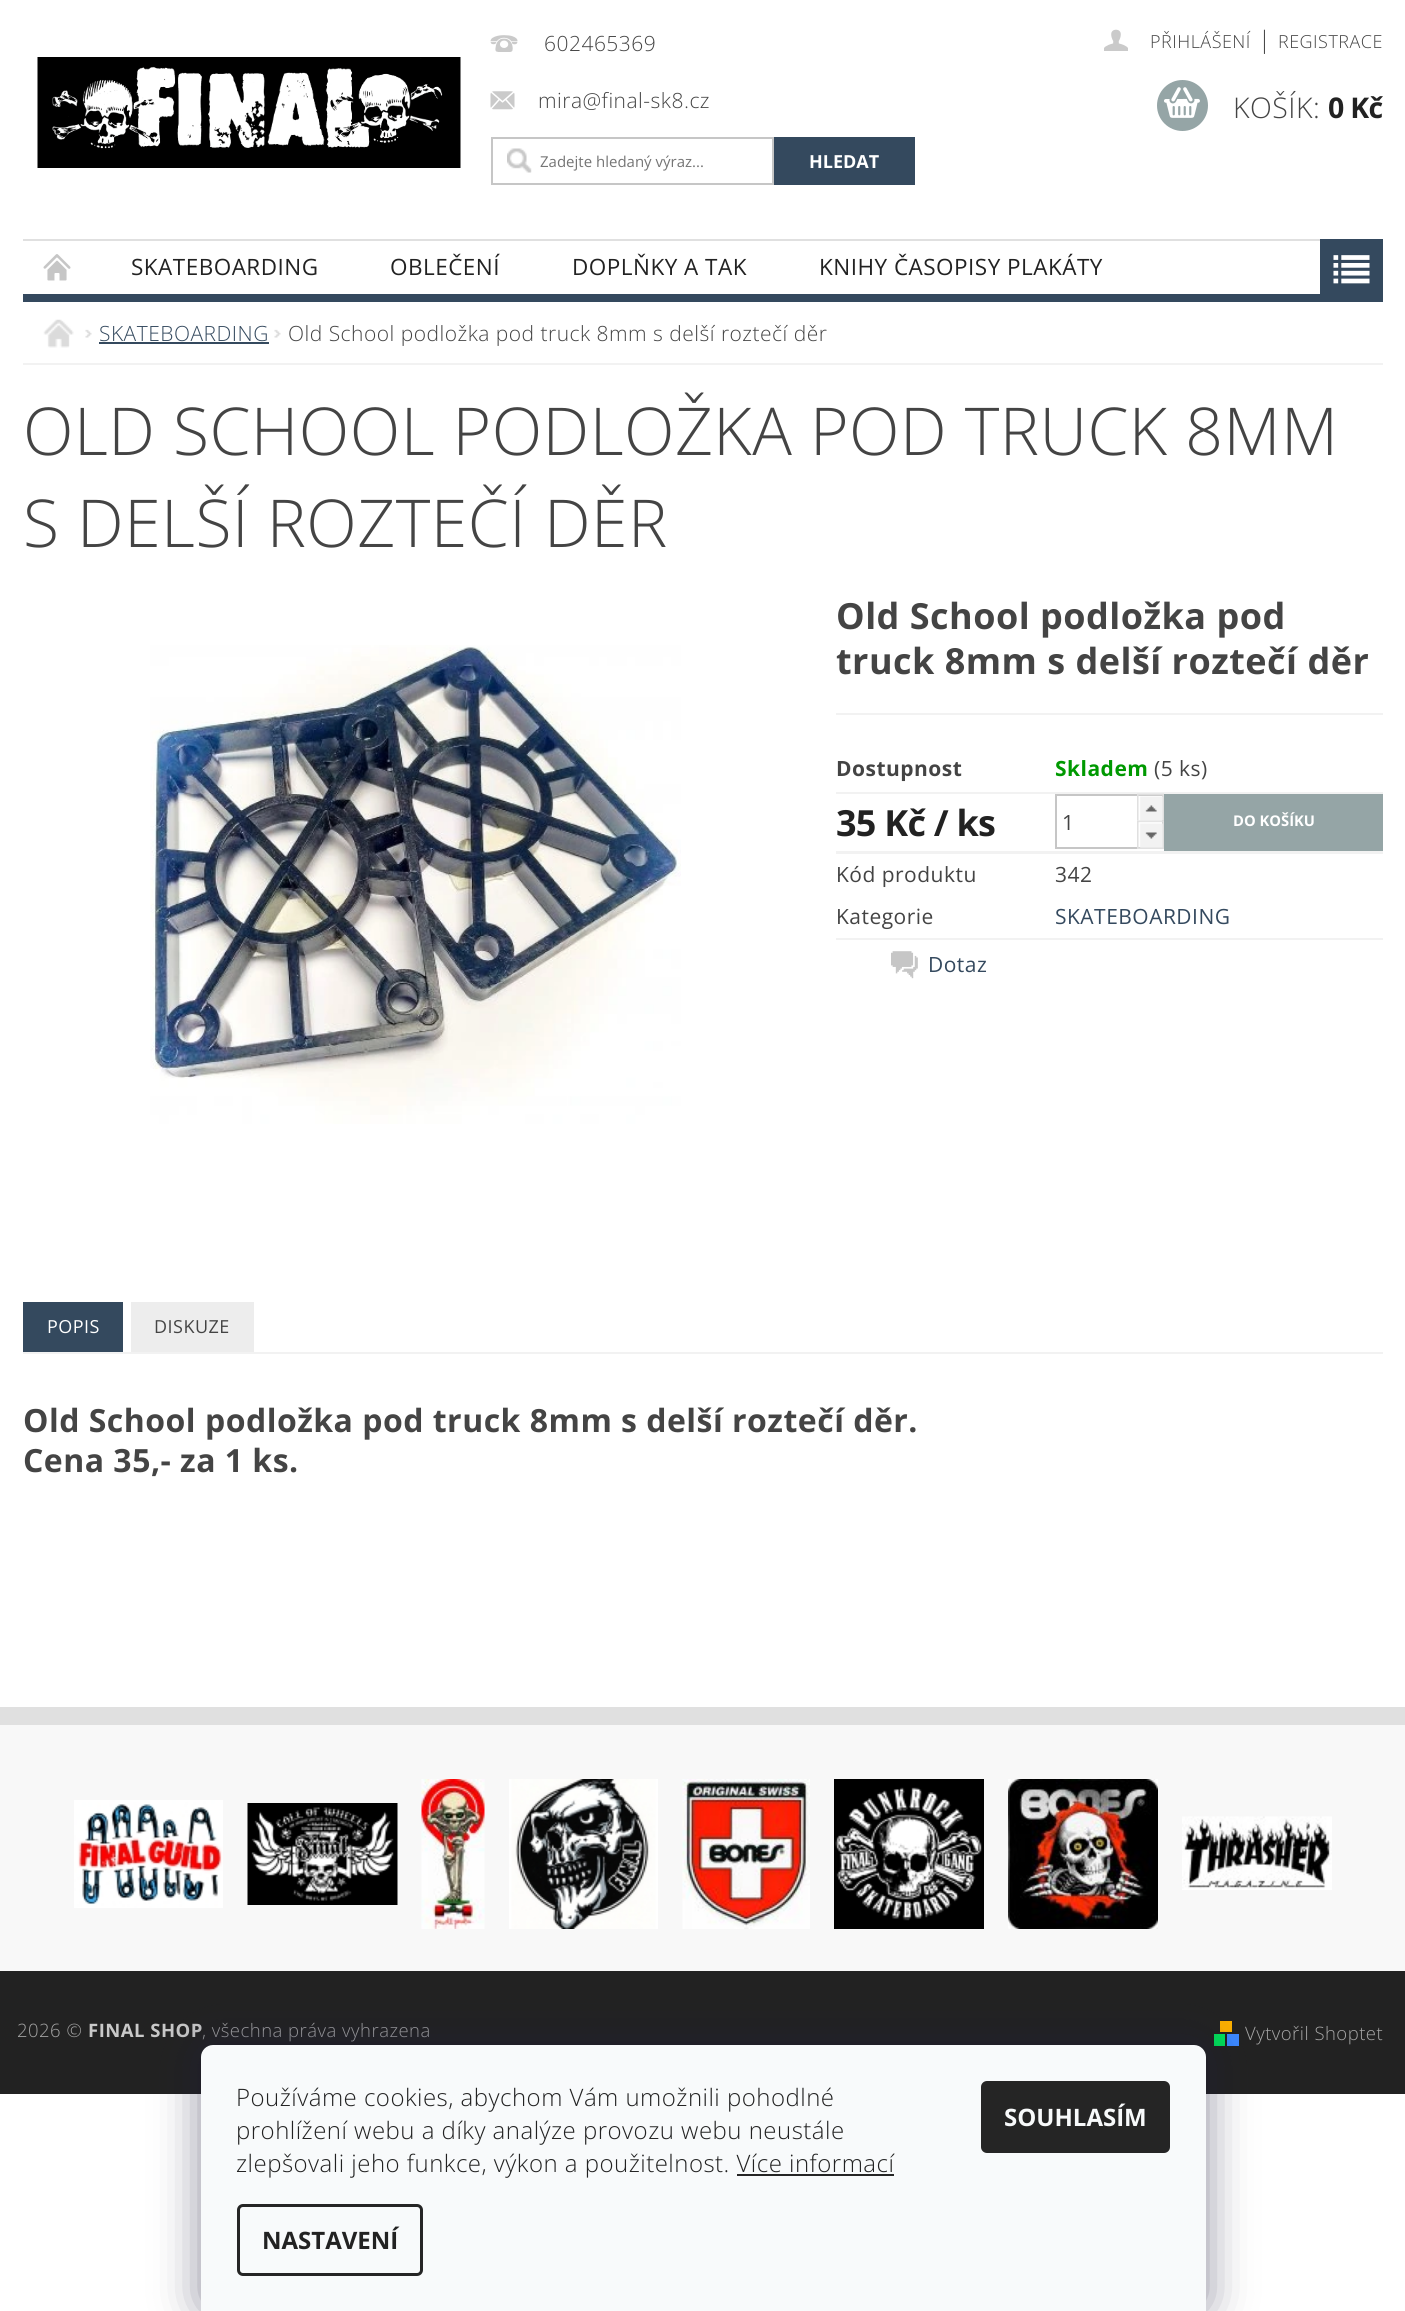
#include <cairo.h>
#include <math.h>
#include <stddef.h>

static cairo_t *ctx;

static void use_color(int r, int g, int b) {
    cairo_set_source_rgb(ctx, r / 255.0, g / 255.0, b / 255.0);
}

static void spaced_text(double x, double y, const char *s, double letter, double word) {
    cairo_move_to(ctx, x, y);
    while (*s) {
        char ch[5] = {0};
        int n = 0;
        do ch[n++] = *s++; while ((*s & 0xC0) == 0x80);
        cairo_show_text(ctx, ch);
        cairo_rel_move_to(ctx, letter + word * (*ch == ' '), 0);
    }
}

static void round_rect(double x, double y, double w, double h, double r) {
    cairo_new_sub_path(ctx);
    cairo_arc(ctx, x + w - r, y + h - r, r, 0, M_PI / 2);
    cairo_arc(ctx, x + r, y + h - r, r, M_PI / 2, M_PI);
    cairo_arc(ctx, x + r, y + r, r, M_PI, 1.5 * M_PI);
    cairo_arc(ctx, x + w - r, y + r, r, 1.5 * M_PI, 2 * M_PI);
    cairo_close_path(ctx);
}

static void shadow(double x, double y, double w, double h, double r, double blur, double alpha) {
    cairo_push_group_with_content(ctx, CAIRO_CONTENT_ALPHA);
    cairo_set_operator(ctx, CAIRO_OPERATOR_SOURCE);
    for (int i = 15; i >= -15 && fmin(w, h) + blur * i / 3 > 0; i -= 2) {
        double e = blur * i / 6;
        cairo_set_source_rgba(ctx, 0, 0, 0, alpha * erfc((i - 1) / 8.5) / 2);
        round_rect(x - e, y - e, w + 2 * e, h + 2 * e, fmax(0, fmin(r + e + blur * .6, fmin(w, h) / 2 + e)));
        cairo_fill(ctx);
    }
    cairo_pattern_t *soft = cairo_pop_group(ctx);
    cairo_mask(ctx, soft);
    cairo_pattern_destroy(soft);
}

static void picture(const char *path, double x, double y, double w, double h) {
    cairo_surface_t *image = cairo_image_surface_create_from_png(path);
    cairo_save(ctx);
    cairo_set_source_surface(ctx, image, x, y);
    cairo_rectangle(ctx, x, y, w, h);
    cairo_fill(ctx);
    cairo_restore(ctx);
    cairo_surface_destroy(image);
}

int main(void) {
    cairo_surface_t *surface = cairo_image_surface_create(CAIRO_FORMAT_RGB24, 1405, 2311);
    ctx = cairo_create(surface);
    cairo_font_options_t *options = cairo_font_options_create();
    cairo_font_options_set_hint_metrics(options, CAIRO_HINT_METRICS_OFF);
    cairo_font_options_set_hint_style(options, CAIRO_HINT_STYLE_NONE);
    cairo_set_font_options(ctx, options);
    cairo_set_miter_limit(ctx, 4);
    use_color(255, 255, 255);
    cairo_paint(ctx);
    use_color(52, 73, 94);
    cairo_rectangle(ctx, 23, 294, 1297, 8);
    cairo_fill(ctx);
    picture("img1.png", 37, 57, 424, 111);
    picture("img2.png", 490, 35, 28, 17);
    cairo_select_font_face(ctx, "Open Sans Light", CAIRO_FONT_SLANT_NORMAL, CAIRO_FONT_WEIGHT_NORMAL);
    cairo_set_font_size(ctx, 21);
    use_color(68, 68, 68);
    spaced_text(544, 51, "602465369", 0.48, 0);
    picture("img3.png", 490, 91, 25, 19);
    spaced_text(538, 108, "mira@final-sk8.cz", 0.48, 0);
    picture("img4.png", 507, 148, 25, 25);
    cairo_rectangle(ctx, 492, 138, 281, 46);
    use_color(198, 198, 198);
    cairo_stroke(ctx);
    cairo_select_font_face(ctx, "Open Sans", CAIRO_FONT_SLANT_NORMAL, CAIRO_FONT_WEIGHT_NORMAL);
    cairo_set_font_size(ctx, 15);
    use_color(117, 117, 117);
    cairo_move_to(ctx, 540, 167);
    cairo_show_text(ctx, "Zadejte hledaný výraz...");
    use_color(52, 73, 94);
    cairo_rectangle(ctx, 774, 137, 141, 48);
    cairo_fill(ctx);
    cairo_select_font_face(ctx, "Open Sans", CAIRO_FONT_SLANT_NORMAL, CAIRO_FONT_WEIGHT_BOLD);
    cairo_set_font_size(ctx, 18);
    use_color(255, 255, 255);
    cairo_move_to(ctx, 809, 168);
    cairo_show_text(ctx, "HLEDAT");
    picture("img5.png", 1104, 29, 24, 22);
    cairo_select_font_face(ctx, "Open Sans Light", CAIRO_FONT_SLANT_NORMAL, CAIRO_FONT_WEIGHT_NORMAL);
    use_color(68, 68, 68);
    spaced_text(1150, 48, "PŘIHLÁŠENÍ", 0.48, 0);
    cairo_set_font_size(ctx, 24);
    spaced_text(1258, 48, "|", 0.48, 0);
    cairo_set_font_size(ctx, 18);
    spaced_text(1278, 48, "REGISTRACE", 0.48, 0);
    use_color(149, 165, 166);
    cairo_new_path(ctx);
    cairo_arc(ctx, 1182.5, 105.5, 25.5, 0, 2 * M_PI);
    cairo_fill(ctx);
    picture("img6.png", 1164, 87, 36, 31);
    cairo_set_font_size(ctx, 28.5);
    use_color(68, 68, 68);
    spaced_text(1233, 118, "KOŠÍK:", 0.48, 0);
    cairo_select_font_face(ctx, "Open Sans", CAIRO_FONT_SLANT_NORMAL, CAIRO_FONT_WEIGHT_BOLD);
    use_color(34, 34, 34);
    spaced_text(1328, 118, "0 Kč", -0.75, 0);
    use_color(224, 224, 224);
    cairo_rectangle(ctx, 23, 239, 1297, 2);
    cairo_fill(ctx);
    picture("img7.png", 43, 254, 28, 27);
    cairo_select_font_face(ctx, "Open Sans", CAIRO_FONT_SLANT_NORMAL, CAIRO_FONT_WEIGHT_NORMAL);
    cairo_set_font_size(ctx, 22.5);
    use_color(34, 34, 34);
    spaced_text(131, 275, "SKATEBOARDING", 0.48, 0);
    spaced_text(390, 275, "OBLEČENÍ", 0.48, 0);
    spaced_text(572, 275, "DOPLŇKY A TAK", 0.48, 0);
    spaced_text(819, 275, "KNIHY ČASOPISY PLAKÁTY", 0.48, 0);
    use_color(52, 73, 94);
    cairo_rectangle(ctx, 1320, 239, 63, 63);
    cairo_fill(ctx);
    picture("img8.png", 1333, 255, 37, 29);
    use_color(242, 242, 242);
    cairo_rectangle(ctx, 23, 363, 1360, 2);
    cairo_fill(ctx);
    picture("img9.png", 43, 319, 31, 29);
    picture("img10.png", 85, 329, 7, 9);
    cairo_select_font_face(ctx, "Open Sans Light", CAIRO_FONT_SLANT_NORMAL, CAIRO_FONT_WEIGHT_NORMAL);
    cairo_set_font_size(ctx, 21);
    use_color(52, 73, 94);
    spaced_text(99, 341, "SKATEBOARDING", 0.48, 0);
    cairo_rectangle(ctx, 99, 342, 170, 2);
    cairo_fill(ctx);
    picture("img10.png", 274, 329, 7, 9);
    use_color(68, 68, 68);
    spaced_text(288, 341, "Old School podložka pod truck 8mm s delší roztečí děr", 0.48, 0);
    cairo_set_font_size(ctx, 66);
    spaced_text(23, 455, "OLD SCHOOL PODLOŽKA POD TRUCK 8MM", 0.48, 0);
    spaced_text(23, 547, "S DELŠÍ ROZTEČÍ DĚR", 0.48, 0);
    picture("img11.png", 150, 645, 531, 479);
    use_color(242, 242, 242);
    cairo_rectangle(ctx, 836, 713, 547, 2);
    cairo_fill(ctx);
    cairo_select_font_face(ctx, "Open Sans", CAIRO_FONT_SLANT_NORMAL, CAIRO_FONT_WEIGHT_BOLD);
    cairo_set_font_size(ctx, 36);
    use_color(68, 68, 68);
    spaced_text(836, 629, "Old School podložka pod", 0.48, 0);
    spaced_text(836, 674, "truck 8mm s delší roztečí děr", 0.48, 0);
    use_color(242, 242, 242);
    cairo_rectangle(ctx, 836, 792, 547, 2);
    cairo_fill(ctx);
    cairo_set_font_size(ctx, 21);
    use_color(68, 68, 68);
    spaced_text(836, 776, "Dostupnost", 0.48, 0);
    use_color(0, 153, 1);
    spaced_text(1055, 776, "Skladem", 0.48, 0);
    cairo_select_font_face(ctx, "Open Sans", CAIRO_FONT_SLANT_NORMAL, CAIRO_FONT_WEIGHT_NORMAL);
    use_color(68, 68, 68);
    spaced_text(1154, 776, "(5 ks)", 0.48, 0);
    use_color(242, 242, 242);
    cairo_rectangle(ctx, 836, 851, 547, 3);
    cairo_fill(ctx);
    cairo_select_font_face(ctx, "Open Sans", CAIRO_FONT_SLANT_NORMAL, CAIRO_FONT_WEIGHT_BOLD);
    cairo_set_font_size(ctx, 36);
    use_color(34, 34, 34);
    spaced_text(836, 836, "35 Kč / ks", -0.75, 0);
    cairo_rectangle(ctx, 1056, 795, 107, 53);
    use_color(198, 198, 198);
    cairo_stroke(ctx);
    picture("img12.png", 1137, 793, 27, 28);
    cairo_select_font_face(ctx, "Open Sans", CAIRO_FONT_SLANT_NORMAL, CAIRO_FONT_WEIGHT_NORMAL);
    cairo_set_font_size(ctx, 21);
    use_color(68, 68, 68);
    cairo_move_to(ctx, 1062, 830);
    cairo_show_text(ctx, "1");
    picture("img13.png", 1137, 820, 27, 29);
    use_color(149, 165, 166);
    cairo_rectangle(ctx, 1164, 794, 219, 57);
    cairo_fill(ctx);
    cairo_select_font_face(ctx, "Open Sans", CAIRO_FONT_SLANT_NORMAL, CAIRO_FONT_WEIGHT_BOLD);
    cairo_set_font_size(ctx, 14.75);
    use_color(255, 255, 255);
    cairo_move_to(ctx, 1233, 826);
    cairo_show_text(ctx, "DO KOŠÍKU");
    cairo_select_font_face(ctx, "Open Sans", CAIRO_FONT_SLANT_NORMAL, CAIRO_FONT_WEIGHT_NORMAL);
    cairo_set_font_size(ctx, 21);
    use_color(68, 68, 68);
    spaced_text(836, 882, "Kód produktu", 0.48, 0);
    spaced_text(1055, 882, "342", 0.48, 0);
    use_color(242, 242, 242);
    cairo_rectangle(ctx, 836, 938, 547, 2);
    cairo_fill(ctx);
    use_color(68, 68, 68);
    spaced_text(836, 924, "Kategorie", 0.48, 0);
    use_color(52, 73, 94);
    spaced_text(1055, 924, "SKATEBOARDING", 0.48, 0);
    picture("img14.png", 891, 951, 27, 28);
    spaced_text(928, 972, "Dotaz", 0.48, 0);
    use_color(242, 242, 242);
    cairo_rectangle(ctx, 23, 1352, 1360, 2);
    cairo_fill(ctx);
    use_color(52, 73, 94);
    cairo_rectangle(ctx, 23, 1302, 100, 50);
    cairo_fill(ctx);
    cairo_set_font_size(ctx, 18);
    use_color(255, 255, 255);
    spaced_text(47, 1333, "POPIS", 0.48, 0);
    use_color(237, 237, 237);
    cairo_rectangle(ctx, 131, 1302, 123, 50);
    cairo_fill(ctx);
    use_color(68, 68, 68);
    spaced_text(154, 1333, "DISKUZE", 0.48, 0);
    cairo_select_font_face(ctx, "Open Sans", CAIRO_FONT_SLANT_NORMAL, CAIRO_FONT_WEIGHT_BOLD);
    cairo_set_font_size(ctx, 32);
    spaced_text(23, 1432, "Old School podložka pod truck 8mm s delší roztečí děr.", 0.48, 0);
    spaced_text(23, 1472, "Cena 35,- za 1 ks.", 0.48, 0);
    use_color(248, 248, 248);
    cairo_rectangle(ctx, 0, 1725, 1405, 246);
    cairo_fill(ctx);
    use_color(224, 224, 224);
    cairo_rectangle(ctx, 0, 1707, 1405, 18);
    cairo_fill(ctx);
    picture("img15.png", 74, 1800, 149, 108);
    picture("img16.png", 247, 1803, 151, 102);
    picture("img17.png", 421, 1779, 64, 150);
    picture("img18.png", 509, 1779, 149, 150);
    picture("img19.png", 682, 1779, 128, 150);
    picture("img20.png", 834, 1779, 150, 150);
    picture("img21.png", 1008, 1779, 150, 150);
    picture("img22.png", 1182, 1816, 150, 74);
    use_color(34, 34, 34);
    cairo_rectangle(ctx, 0, 1971, 1405, 123);
    cairo_fill(ctx);
    cairo_select_font_face(ctx, "Open Sans Light", CAIRO_FONT_SLANT_NORMAL, CAIRO_FONT_WEIGHT_NORMAL);
    cairo_set_font_size(ctx, 18.5);
    use_color(166, 166, 166);
    spaced_text(17, 2037, "2026 ©", 0.48, 0);
    cairo_select_font_face(ctx, "Open Sans", CAIRO_FONT_SLANT_NORMAL, CAIRO_FONT_WEIGHT_BOLD);
    use_color(201, 201, 201);
    spaced_text(88, 2037, "FINAL SHOP", 0.48, 0);
    cairo_select_font_face(ctx, "Open Sans Light", CAIRO_FONT_SLANT_NORMAL, CAIRO_FONT_WEIGHT_NORMAL);
    use_color(166, 166, 166);
    spaced_text(202, 2037, ", všechna práva vyhrazena", 0.48, 0);
    use_color(252, 175, 0);
    cairo_rectangle(ctx, 1220, 2021, 12, 11);
    cairo_fill(ctx);
    use_color(0, 226, 90);
    cairo_rectangle(ctx, 1214, 2034, 11, 12);
    cairo_fill(ctx);
    use_color(59, 136, 255);
    cairo_rectangle(ctx, 1227, 2034, 12, 12);
    cairo_fill(ctx);
    use_color(166, 166, 166);
    spaced_text(1245, 2040, "Vytvořil Shoptet", 0.48, 0);
    use_color(27, 25, 57);
    shadow(201, 2045, 1005, 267, 12, 22.5, 0.5);
    use_color(248, 250, 251);
    cairo_new_path(ctx);
    cairo_move_to(ctx, 213, 2045);
    cairo_line_to(ctx, 1194, 2045);
    cairo_curve_to(ctx, 1200.5, 2045, 1206, 2050.5, 1206, 2057);
    cairo_line_to(ctx, 1206, 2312);
    cairo_line_to(ctx, 201, 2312);
    cairo_line_to(ctx, 201, 2057);
    cairo_curve_to(ctx, 201, 2050.5, 206.5, 2045, 213, 2045);
    cairo_close_path(ctx);
    cairo_fill(ctx);
    cairo_set_font_size(ctx, 24);
    use_color(34, 34, 34);
    spaced_text(236, 2106, "Používáme cookies, abychom Vám umožnili pohodlné", 0.48, 0);
    spaced_text(236, 2139, "prohlížení webu a díky analýze provozu webu neustále", 0.48, 0);
    spaced_text(236, 2172, "zlepšovali jeho funkce, výkon a použitelnost. Více informací", 0.48, 0);
    use_color(37, 37, 37);
    cairo_rectangle(ctx, 737, 2174, 157, 2);
    cairo_fill(ctx);
    round_rect(238.5, 2205.5, 183, 69, 4.5);
    cairo_set_line_width(ctx, 3);
    cairo_stroke(ctx);
    cairo_select_font_face(ctx, "Open Sans", CAIRO_FONT_SLANT_NORMAL, CAIRO_FONT_WEIGHT_BOLD);
    use_color(34, 34, 34);
    cairo_move_to(ctx, 262, 2249);
    cairo_show_text(ctx, "NASTAVENÍ");
    use_color(37, 37, 37);
    round_rect(981, 2081, 189, 72, 6);
    cairo_fill(ctx);
    use_color(248, 250, 251);
    cairo_move_to(ctx, 1004, 2126);
    cairo_show_text(ctx, "SOUHLASÍM");
    cairo_surface_write_to_png(surface, "result.png");
    cairo_font_options_destroy(options);
    cairo_destroy(ctx);
    cairo_surface_destroy(surface);
    return 0;
}
